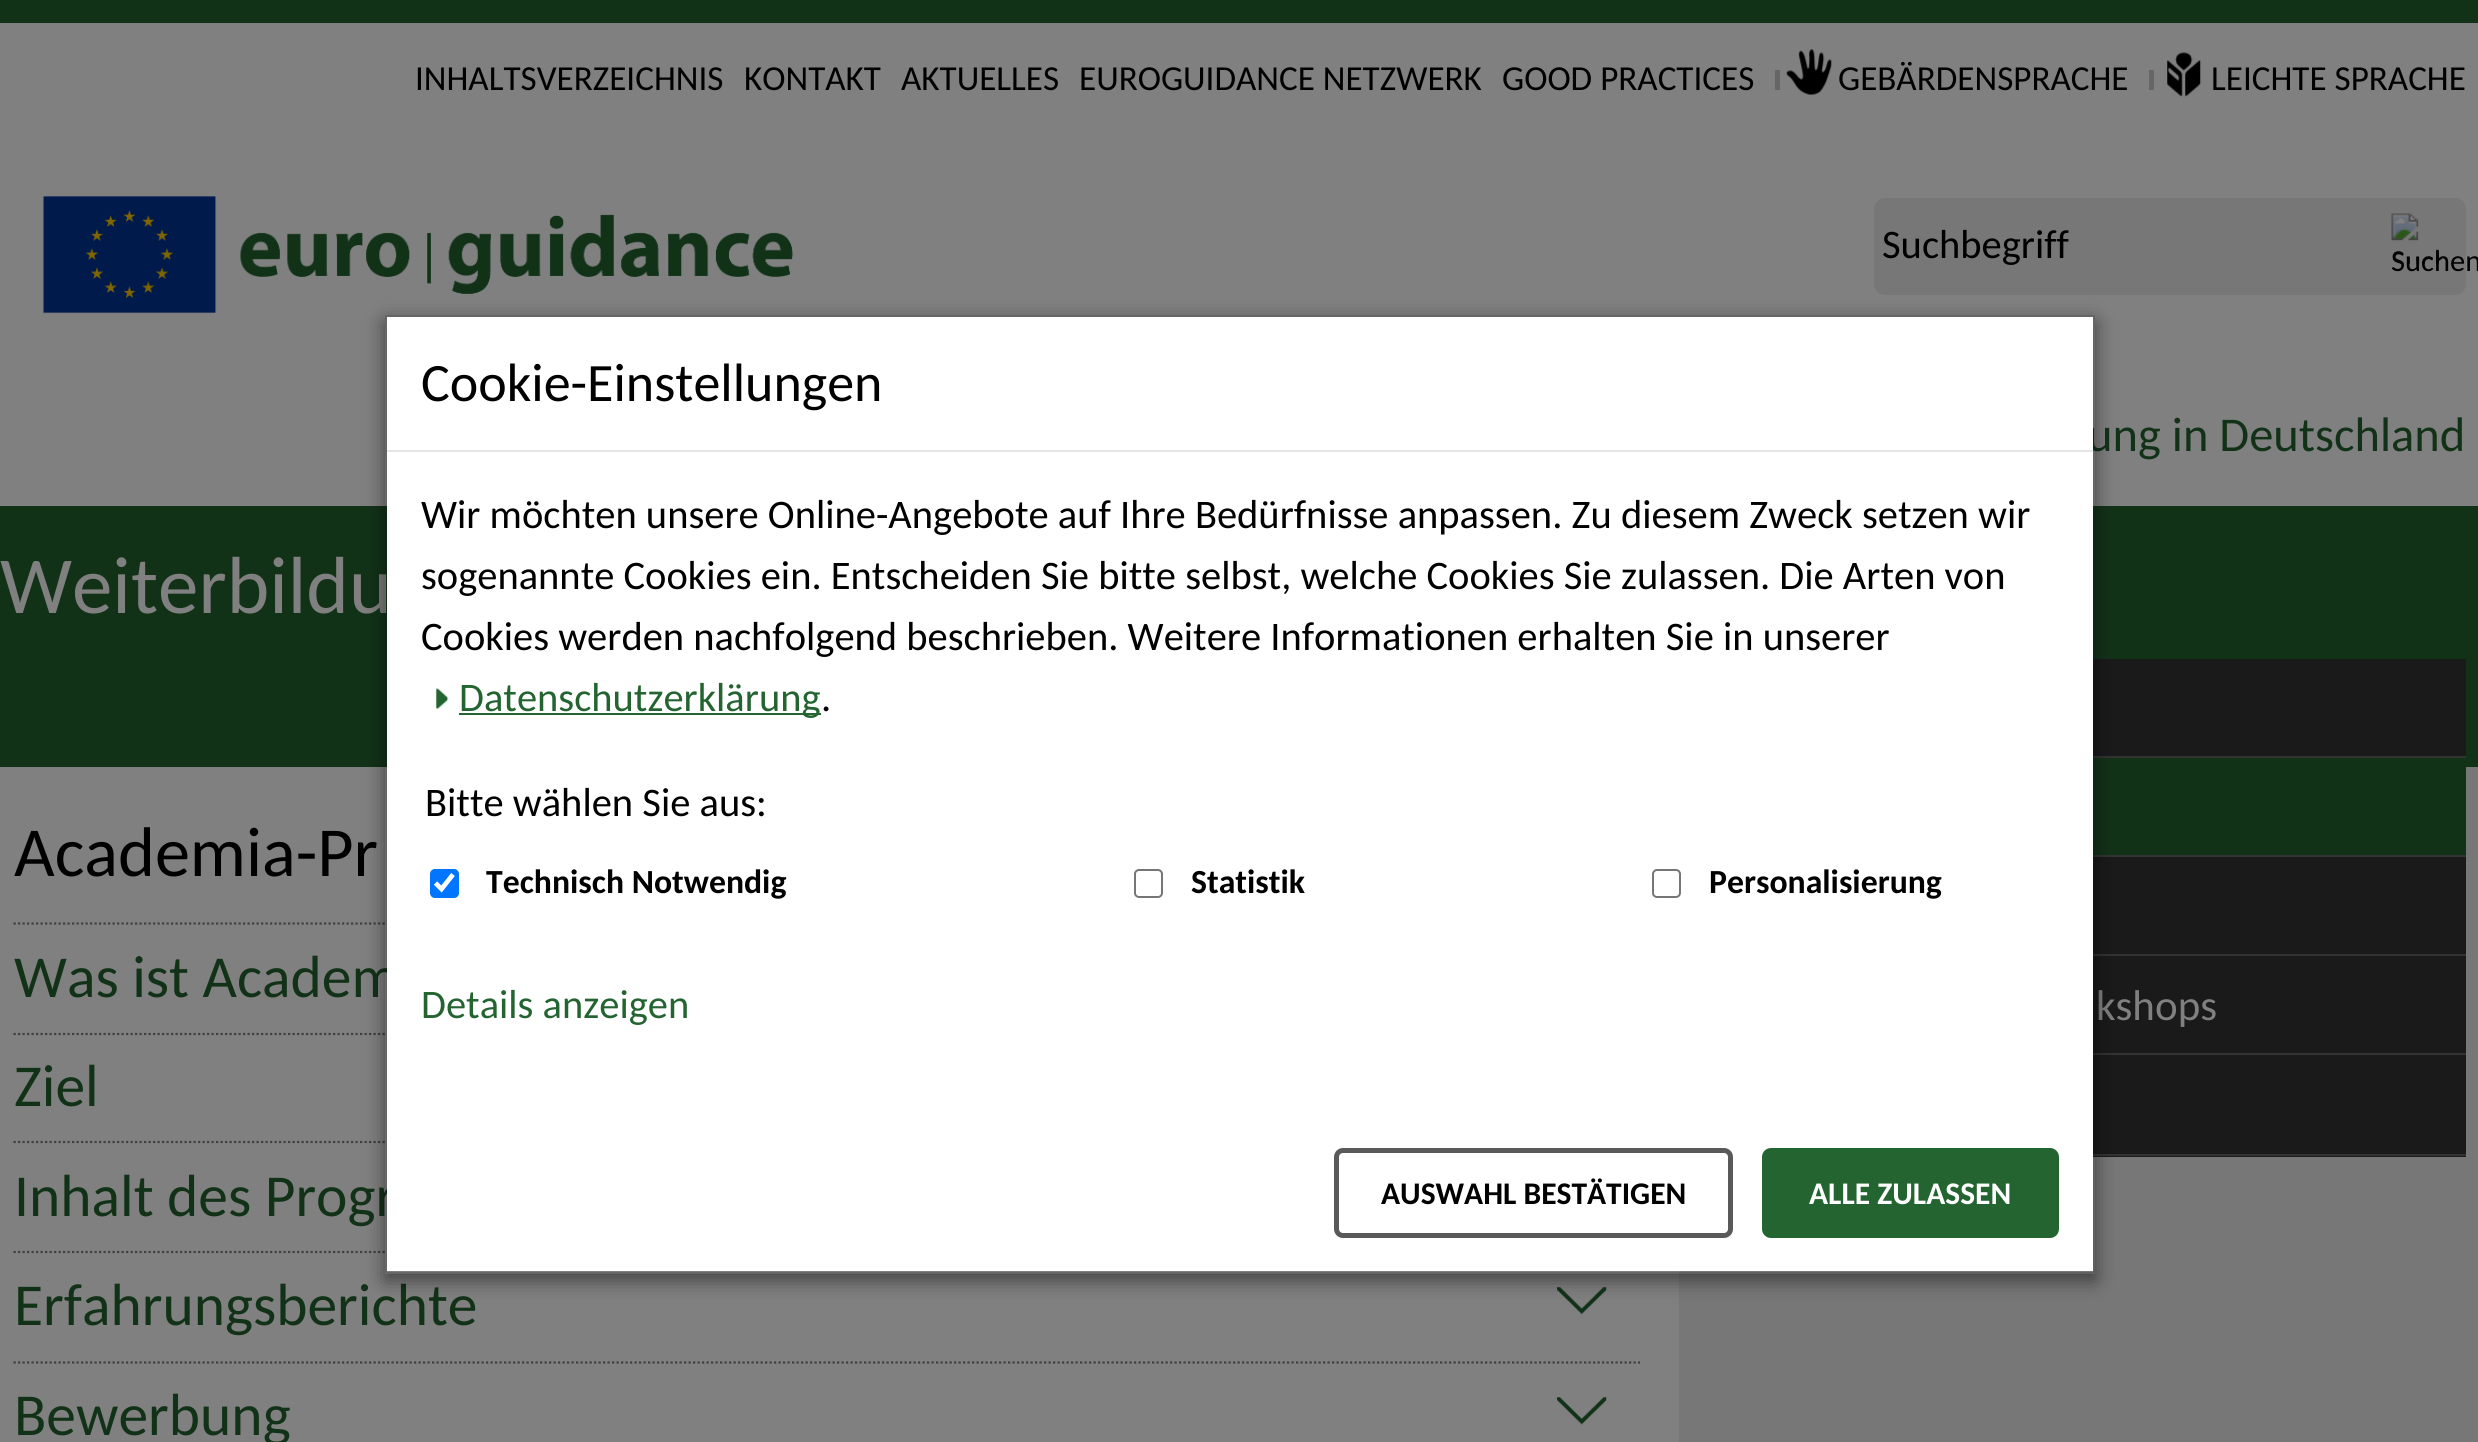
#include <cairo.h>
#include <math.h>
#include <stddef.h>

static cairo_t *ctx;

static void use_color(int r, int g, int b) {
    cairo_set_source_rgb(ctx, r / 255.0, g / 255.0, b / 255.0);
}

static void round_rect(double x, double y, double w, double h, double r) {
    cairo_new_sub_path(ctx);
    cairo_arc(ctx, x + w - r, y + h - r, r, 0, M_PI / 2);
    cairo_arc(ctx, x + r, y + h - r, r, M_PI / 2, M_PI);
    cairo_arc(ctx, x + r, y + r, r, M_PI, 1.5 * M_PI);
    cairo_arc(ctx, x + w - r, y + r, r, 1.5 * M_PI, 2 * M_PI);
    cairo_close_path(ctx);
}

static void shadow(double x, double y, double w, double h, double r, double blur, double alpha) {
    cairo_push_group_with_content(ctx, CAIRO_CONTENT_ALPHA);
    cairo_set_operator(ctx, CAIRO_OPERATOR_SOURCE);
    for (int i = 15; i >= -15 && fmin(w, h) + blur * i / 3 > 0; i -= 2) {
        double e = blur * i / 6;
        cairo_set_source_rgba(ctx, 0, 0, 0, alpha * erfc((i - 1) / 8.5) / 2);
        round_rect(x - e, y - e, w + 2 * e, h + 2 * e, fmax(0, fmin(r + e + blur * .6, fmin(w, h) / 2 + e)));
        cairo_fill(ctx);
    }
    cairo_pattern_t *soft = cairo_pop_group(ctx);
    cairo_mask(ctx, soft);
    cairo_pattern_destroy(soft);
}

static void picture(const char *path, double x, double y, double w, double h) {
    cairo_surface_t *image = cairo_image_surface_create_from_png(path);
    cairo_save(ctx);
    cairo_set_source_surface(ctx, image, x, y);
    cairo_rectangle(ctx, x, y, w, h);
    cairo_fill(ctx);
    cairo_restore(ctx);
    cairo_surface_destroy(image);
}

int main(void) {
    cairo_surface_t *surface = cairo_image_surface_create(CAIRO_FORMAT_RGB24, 2478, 1442);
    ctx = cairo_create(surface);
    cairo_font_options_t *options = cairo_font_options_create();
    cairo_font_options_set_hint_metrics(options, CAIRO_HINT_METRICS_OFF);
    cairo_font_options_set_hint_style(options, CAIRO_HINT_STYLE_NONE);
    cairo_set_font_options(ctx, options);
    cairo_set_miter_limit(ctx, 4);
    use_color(128, 128, 128);
    cairo_paint(ctx);
    use_color(18, 50, 24);
    cairo_rectangle(ctx, 0, 0, 2478, 23);
    cairo_fill(ctx);
    use_color(119, 119, 119);
    cairo_rectangle(ctx, 1679, 1202, 799, 240);
    cairo_fill(ctx);
    cairo_select_font_face(ctx, "Carlito", CAIRO_FONT_SLANT_NORMAL, CAIRO_FONT_WEIGHT_NORMAL);
    cairo_set_font_size(ctx, 35.1);
    use_color(0, 0, 0);
    cairo_move_to(ctx, 415, 90);
    cairo_show_text(ctx, "INHALTSVERZEICHNIS");
    cairo_move_to(ctx, 744, 90);
    cairo_show_text(ctx, "KONTAKT");
    cairo_move_to(ctx, 901, 90);
    cairo_show_text(ctx, "AKTUELLES");
    cairo_move_to(ctx, 1079, 90);
    cairo_show_text(ctx, "EUROGUIDANCE NETZWERK");
    cairo_move_to(ctx, 1502, 90);
    cairo_show_text(ctx, "GOOD PRACTICES");
    use_color(102, 102, 102);
    cairo_rectangle(ctx, 1775, 70, 5, 20);
    cairo_fill(ctx);
    picture("img1.png", 1786, 49, 46, 46);
    use_color(0, 0, 0);
    cairo_move_to(ctx, 1838, 90);
    cairo_show_text(ctx, "GEBÄRDENSPRACHE");
    use_color(102, 102, 102);
    cairo_rectangle(ctx, 2149, 70, 5, 20);
    cairo_fill(ctx);
    picture("img2.png", 2167, 52, 34, 45);
    use_color(0, 0, 0);
    cairo_move_to(ctx, 2211, 90);
    cairo_show_text(ctx, "LEICHTE SPRACHE");
    picture("img3.png", 42, 196, 751, 118);
    use_color(119, 119, 119);
    round_rect(1874, 198, 592, 97, 11);
    cairo_fill(ctx);
    cairo_set_font_size(ctx, 40.5);
    use_color(0, 0, 0);
    cairo_move_to(ctx, 1882, 258);
    cairo_show_text(ctx, "Suchbegriff");
    picture("img4.png", 2391, 213, 51, 51);
    cairo_set_font_size(ctx, 30.5);
    cairo_move_to(ctx, 2391, 271);
    cairo_show_text(ctx, "Suchen");
    cairo_set_font_size(ctx, 48.5);
    use_color(18, 50, 24);
    cairo_move_to(ctx, 2087, 451);
    cairo_show_text(ctx, "ung in Deutschland");
    cairo_rectangle(ctx, 0, 506, 2478, 261);
    cairo_fill(ctx);
    cairo_set_font_size(ctx, 81);
    use_color(128, 128, 128);
    cairo_move_to(ctx, 0, 613);
    cairo_show_text(ctx, "Weiterbildu");
    cairo_set_font_size(ctx, 70.25);
    use_color(0, 0, 0);
    cairo_move_to(ctx, 14, 876);
    cairo_show_text(ctx, "Academia-Pr");
    cairo_new_path(ctx);
    cairo_move_to(ctx, 13.5, 923.5);
    cairo_line_to(ctx, 1640, 923.5);
    use_color(64, 64, 64);
    cairo_set_line_width(ctx, 2.2);
    cairo_set_dash(ctx, (double[]){2.25, 2.25}, 2, 0);
    cairo_stroke(ctx);
    cairo_set_font_size(ctx, 59.5);
    use_color(18, 50, 24);
    cairo_move_to(ctx, 14, 997);
    cairo_show_text(ctx, "Was ist Academ");
    cairo_new_path(ctx);
    cairo_move_to(ctx, 13.5, 1034);
    cairo_line_to(ctx, 1640, 1034);
    use_color(64, 64, 64);
    cairo_stroke(ctx);
    use_color(18, 50, 24);
    cairo_move_to(ctx, 14, 1106);
    cairo_show_text(ctx, "Ziel");
    cairo_new_path(ctx);
    cairo_move_to(ctx, 13.5, 1142);
    cairo_line_to(ctx, 1640, 1142);
    use_color(64, 64, 64);
    cairo_stroke(ctx);
    use_color(18, 50, 24);
    cairo_move_to(ctx, 14, 1216);
    cairo_show_text(ctx, "Inhalt des Progr");
    cairo_new_path(ctx);
    cairo_move_to(ctx, 13.5, 1252);
    cairo_line_to(ctx, 1640, 1252);
    use_color(64, 64, 64);
    cairo_stroke(ctx);
    use_color(18, 50, 24);
    cairo_move_to(ctx, 14, 1325);
    cairo_show_text(ctx, "Erfahrungsberichte");
    picture("img5.png", 1557, 1287, 50, 28);
    cairo_new_path(ctx);
    cairo_move_to(ctx, 13.5, 1362.5);
    cairo_line_to(ctx, 1640, 1362.5);
    use_color(64, 64, 64);
    cairo_stroke(ctx);
    use_color(18, 50, 24);
    cairo_move_to(ctx, 14, 1435);
    cairo_show_text(ctx, "Bewerbung");
    picture("img6.png", 1557, 1397, 50, 28);
    use_color(119, 119, 119);
    cairo_rectangle(ctx, 2093, 767, 385, 435);
    cairo_fill(ctx);
    use_color(26, 26, 26);
    cairo_rectangle(ctx, 2093, 659, 373, 97);
    cairo_fill(ctx);
    use_color(51, 51, 51);
    cairo_rectangle(ctx, 2093, 756, 373, 2);
    cairo_fill(ctx);
    use_color(18, 50, 24);
    cairo_rectangle(ctx, 2093, 767, 373, 88);
    cairo_fill(ctx);
    use_color(51, 51, 51);
    cairo_rectangle(ctx, 2093, 855, 373, 2);
    cairo_fill(ctx);
    use_color(26, 26, 26);
    cairo_rectangle(ctx, 2093, 857, 373, 97);
    cairo_fill(ctx);
    use_color(51, 51, 51);
    cairo_rectangle(ctx, 2093, 954, 373, 2);
    cairo_fill(ctx);
    use_color(26, 26, 26);
    cairo_rectangle(ctx, 2093, 956, 373, 97);
    cairo_fill(ctx);
    use_color(51, 51, 51);
    cairo_rectangle(ctx, 2093, 1053, 373, 2);
    cairo_fill(ctx);
    cairo_set_font_size(ctx, 43);
    use_color(128, 128, 128);
    cairo_move_to(ctx, 2096, 1020);
    cairo_show_text(ctx, "kshops");
    use_color(26, 26, 26);
    cairo_rectangle(ctx, 2093, 1055, 373, 102);
    cairo_fill(ctx);
    use_color(51, 51, 51);
    cairo_rectangle(ctx, 2093, 1154, 373, 2);
    cairo_fill(ctx);
    cairo_save(ctx);
    cairo_set_fill_rule(ctx, CAIRO_FILL_RULE_EVEN_ODD);
    cairo_new_path(ctx);
    cairo_move_to(ctx, 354, 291);
    cairo_line_to(ctx, 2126, 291);
    cairo_line_to(ctx, 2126, 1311);
    cairo_line_to(ctx, 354, 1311);
    cairo_close_path(ctx);
    cairo_move_to(ctx, 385, 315);
    cairo_line_to(ctx, 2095, 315);
    cairo_line_to(ctx, 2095, 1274);
    cairo_line_to(ctx, 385, 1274);
    cairo_close_path(ctx);
    cairo_clip(ctx);
    use_color(0, 0, 0);
    shadow(385, 322, 1710, 958, 0, 10, 0.5);
    cairo_restore(ctx);
    use_color(255, 255, 255);
    cairo_rectangle(ctx, 387, 317, 1706, 954);
    cairo_fill(ctx);
    cairo_rectangle(ctx, 386, 316, 1708, 957);
    cairo_set_source_rgba(ctx, 0, 0, 0, 0.2);
    cairo_set_line_width(ctx, 2);
    cairo_set_dash(ctx, NULL, 0, 0);
    cairo_stroke(ctx);
    use_color(229, 229, 229);
    cairo_rectangle(ctx, 387, 450, 1706, 2);
    cairo_fill(ctx);
    cairo_set_font_size(ctx, 54);
    use_color(0, 0, 0);
    cairo_move_to(ctx, 421, 401);
    cairo_show_text(ctx, "Cookie-Einstellungen");
    cairo_set_font_size(ctx, 40.5);
    cairo_move_to(ctx, 421, 528);
    cairo_show_text(ctx, "Wir möchten unsere Online-Angebote auf Ihre Bedürfnisse anpassen. Zu diesem Zweck setzen wir");
    cairo_move_to(ctx, 421, 589);
    cairo_show_text(ctx, "sogenannte Cookies ein. Entscheiden Sie bitte selbst, welche Cookies Sie zulassen. Die Arten von");
    cairo_move_to(ctx, 421, 650);
    cairo_show_text(ctx, "Cookies werden nachfolgend beschrieben. Weitere Informationen erhalten Sie in unserer");
    picture("img7.png", 436, 688, 13, 22);
    use_color(35, 100, 48);
    cairo_rectangle(ctx, 459, 713, 362, 2);
    cairo_fill(ctx);
    cairo_move_to(ctx, 459, 711);
    cairo_show_text(ctx, "Datenschutzerklärung");
    use_color(0, 0, 0);
    cairo_move_to(ctx, 821, 711);
    cairo_show_text(ctx, ".");
    cairo_move_to(ctx, 425, 816);
    cairo_show_text(ctx, "Bitte wählen Sie aus:");
    use_color(0, 117, 255);
    round_rect(430, 869, 29, 29, 5);
    cairo_fill(ctx);
    cairo_new_path(ctx);
    cairo_move_to(ctx, 435.5, 883);
    cairo_line_to(ctx, 441.5, 889);
    cairo_line_to(ctx, 453, 874.5);
    use_color(255, 255, 255);
    cairo_set_line_width(ctx, 4.7);
    cairo_stroke(ctx);
    cairo_select_font_face(ctx, "Carlito", CAIRO_FONT_SLANT_NORMAL, CAIRO_FONT_WEIGHT_BOLD);
    cairo_set_font_size(ctx, 33.75);
    use_color(0, 0, 0);
    cairo_move_to(ctx, 486, 893);
    cairo_show_text(ctx, "Technisch Notwendig");
    round_rect(1135, 870, 27, 27, 4);
    use_color(118, 118, 118);
    cairo_set_line_width(ctx, 2);
    cairo_stroke(ctx);
    use_color(0, 0, 0);
    cairo_move_to(ctx, 1191, 893);
    cairo_show_text(ctx, "Statistik");
    round_rect(1653, 870, 27, 27, 4);
    use_color(118, 118, 118);
    cairo_stroke(ctx);
    use_color(0, 0, 0);
    cairo_move_to(ctx, 1709, 893);
    cairo_show_text(ctx, "Personalisierung");
    cairo_select_font_face(ctx, "Carlito", CAIRO_FONT_SLANT_NORMAL, CAIRO_FONT_WEIGHT_NORMAL);
    cairo_set_font_size(ctx, 40.5);
    use_color(35, 100, 48);
    cairo_move_to(ctx, 421, 1018);
    cairo_show_text(ctx, "Details anzeigen");
    round_rect(1336.5, 1150.5, 394, 85, 6.5);
    use_color(89, 89, 89);
    cairo_set_line_width(ctx, 5);
    cairo_stroke(ctx);
    cairo_select_font_face(ctx, "Carlito", CAIRO_FONT_SLANT_NORMAL, CAIRO_FONT_WEIGHT_BOLD);
    cairo_set_font_size(ctx, 31.5);
    use_color(0, 0, 0);
    cairo_move_to(ctx, 1381, 1204);
    cairo_show_text(ctx, "AUSWAHL BESTÄTIGEN");
    use_color(35, 100, 48);
    round_rect(1764.5, 1150.5, 292, 85, 6.5);
    cairo_fill_preserve(ctx);
    cairo_stroke(ctx);
    use_color(255, 255, 255);
    cairo_move_to(ctx, 1809, 1204);
    cairo_show_text(ctx, "ALLE ZULASSEN");
    cairo_surface_write_to_png(surface, "result.png");
    cairo_font_options_destroy(options);
    cairo_destroy(ctx);
    cairo_surface_destroy(surface);
    return 0;
}
